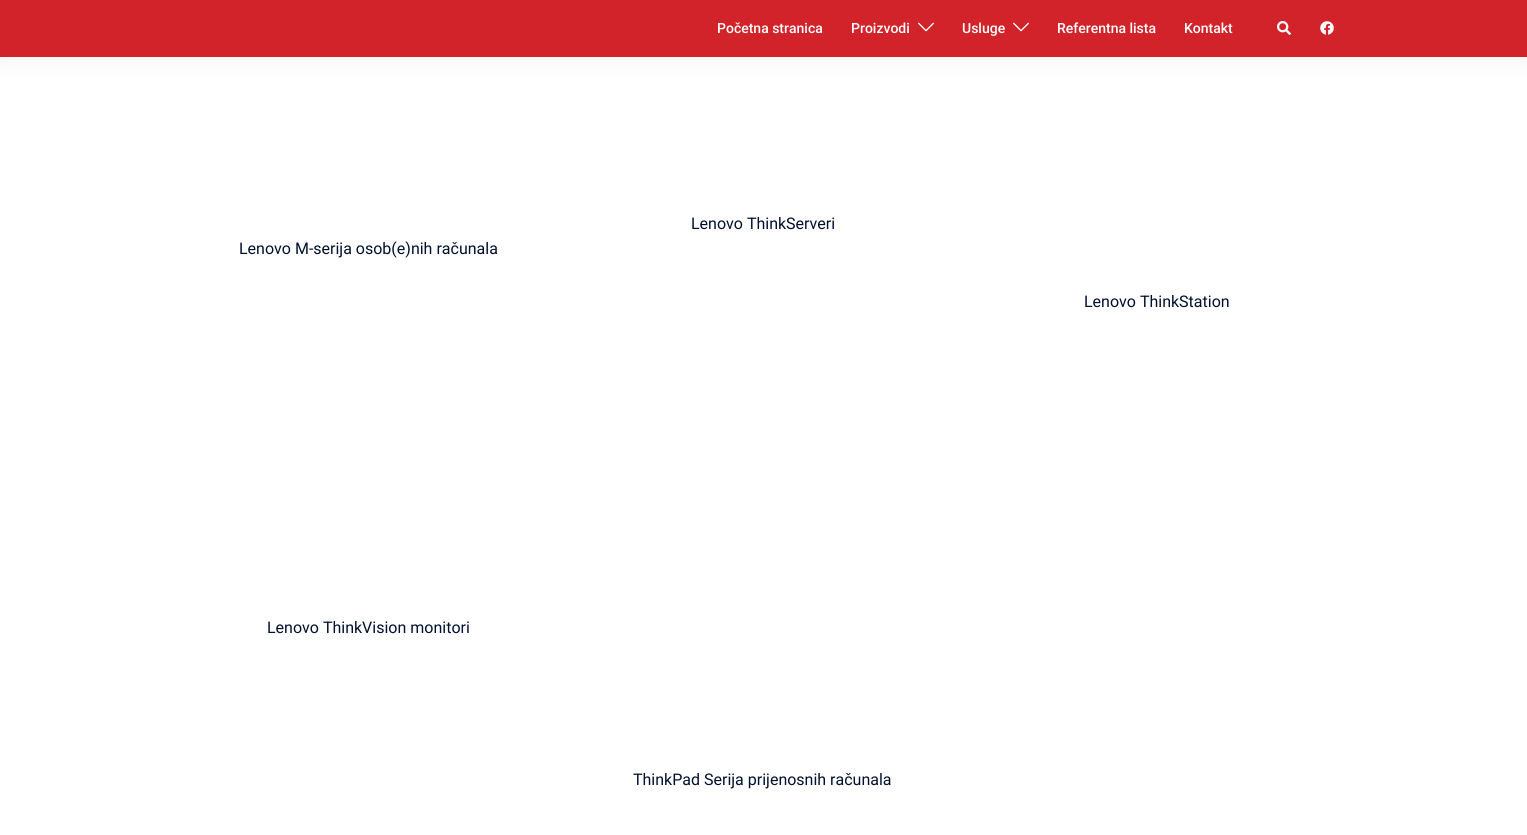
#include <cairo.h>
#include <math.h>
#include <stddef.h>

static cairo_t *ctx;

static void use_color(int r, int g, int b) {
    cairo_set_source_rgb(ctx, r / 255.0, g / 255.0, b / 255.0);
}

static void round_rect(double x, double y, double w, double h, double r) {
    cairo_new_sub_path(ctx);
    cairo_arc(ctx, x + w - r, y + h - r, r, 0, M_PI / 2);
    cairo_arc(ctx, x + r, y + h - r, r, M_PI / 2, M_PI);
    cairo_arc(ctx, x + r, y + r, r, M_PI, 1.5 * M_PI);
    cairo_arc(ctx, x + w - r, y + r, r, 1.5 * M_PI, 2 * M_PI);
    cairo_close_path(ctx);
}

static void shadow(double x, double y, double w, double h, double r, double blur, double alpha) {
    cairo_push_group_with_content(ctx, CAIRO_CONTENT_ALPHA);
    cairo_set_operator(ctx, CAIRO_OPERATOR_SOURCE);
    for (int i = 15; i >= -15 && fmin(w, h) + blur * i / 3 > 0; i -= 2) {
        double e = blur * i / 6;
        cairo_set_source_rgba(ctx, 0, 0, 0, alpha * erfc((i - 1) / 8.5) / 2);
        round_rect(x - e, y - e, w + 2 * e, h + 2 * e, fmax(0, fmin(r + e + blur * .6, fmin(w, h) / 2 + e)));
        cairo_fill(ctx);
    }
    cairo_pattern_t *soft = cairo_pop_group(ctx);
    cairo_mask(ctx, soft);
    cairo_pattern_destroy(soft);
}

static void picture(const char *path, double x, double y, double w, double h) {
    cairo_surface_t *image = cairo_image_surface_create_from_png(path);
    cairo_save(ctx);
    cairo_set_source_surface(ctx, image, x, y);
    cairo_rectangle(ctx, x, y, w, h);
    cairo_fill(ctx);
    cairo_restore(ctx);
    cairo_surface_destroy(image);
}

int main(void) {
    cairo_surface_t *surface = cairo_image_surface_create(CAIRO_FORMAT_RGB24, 1527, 835);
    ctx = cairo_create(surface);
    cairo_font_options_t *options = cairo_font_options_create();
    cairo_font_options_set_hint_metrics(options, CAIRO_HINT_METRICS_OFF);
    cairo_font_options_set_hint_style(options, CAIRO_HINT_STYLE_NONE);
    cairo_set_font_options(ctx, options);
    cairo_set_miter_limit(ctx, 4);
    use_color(255, 255, 255);
    cairo_paint(ctx);
    use_color(0, 0, 0);
    shadow(0, 0, 1527, 57, 0, 15, 0.05);
    use_color(210, 35, 42);
    cairo_rectangle(ctx, 0, 0, 1527, 57);
    cairo_fill(ctx);
    cairo_select_font_face(ctx, "Roboto Medium", CAIRO_FONT_SLANT_NORMAL, CAIRO_FONT_WEIGHT_NORMAL);
    cairo_set_font_size(ctx, 14);
    use_color(255, 255, 255);
    cairo_move_to(ctx, 717, 33);
    cairo_show_text(ctx, "Početna stranica");
    cairo_move_to(ctx, 851, 33);
    cairo_show_text(ctx, "Proizvodi");
    picture("img1.png", 918, 22, 16, 10);
    cairo_move_to(ctx, 962, 33);
    cairo_show_text(ctx, "Usluge");
    picture("img1.png", 1013, 22, 16, 10);
    cairo_move_to(ctx, 1057, 33);
    cairo_show_text(ctx, "Referentna lista");
    cairo_move_to(ctx, 1184, 33);
    cairo_show_text(ctx, "Kontakt");
    picture("img2.png", 1277, 21, 14, 14);
    picture("img3.png", 1320, 21, 14, 14);
    cairo_select_font_face(ctx, "Roboto", CAIRO_FONT_SLANT_NORMAL, CAIRO_FONT_WEIGHT_NORMAL);
    cairo_set_font_size(ctx, 16);
    use_color(0, 16, 46);
    cairo_move_to(ctx, 691, 229);
    cairo_show_text(ctx, "Lenovo ThinkServeri");
    cairo_move_to(ctx, 239, 254);
    cairo_show_text(ctx, "Lenovo M-serija osob(e)nih računala");
    cairo_move_to(ctx, 1084, 307);
    cairo_show_text(ctx, "Lenovo ThinkStation");
    cairo_move_to(ctx, 267, 633);
    cairo_show_text(ctx, "Lenovo ThinkVision monitori");
    cairo_move_to(ctx, 633, 785);
    cairo_show_text(ctx, "ThinkPad Serija prijenosnih računala");
    cairo_surface_write_to_png(surface, "result.png");
    cairo_font_options_destroy(options);
    cairo_destroy(ctx);
    cairo_surface_destroy(surface);
    return 0;
}
